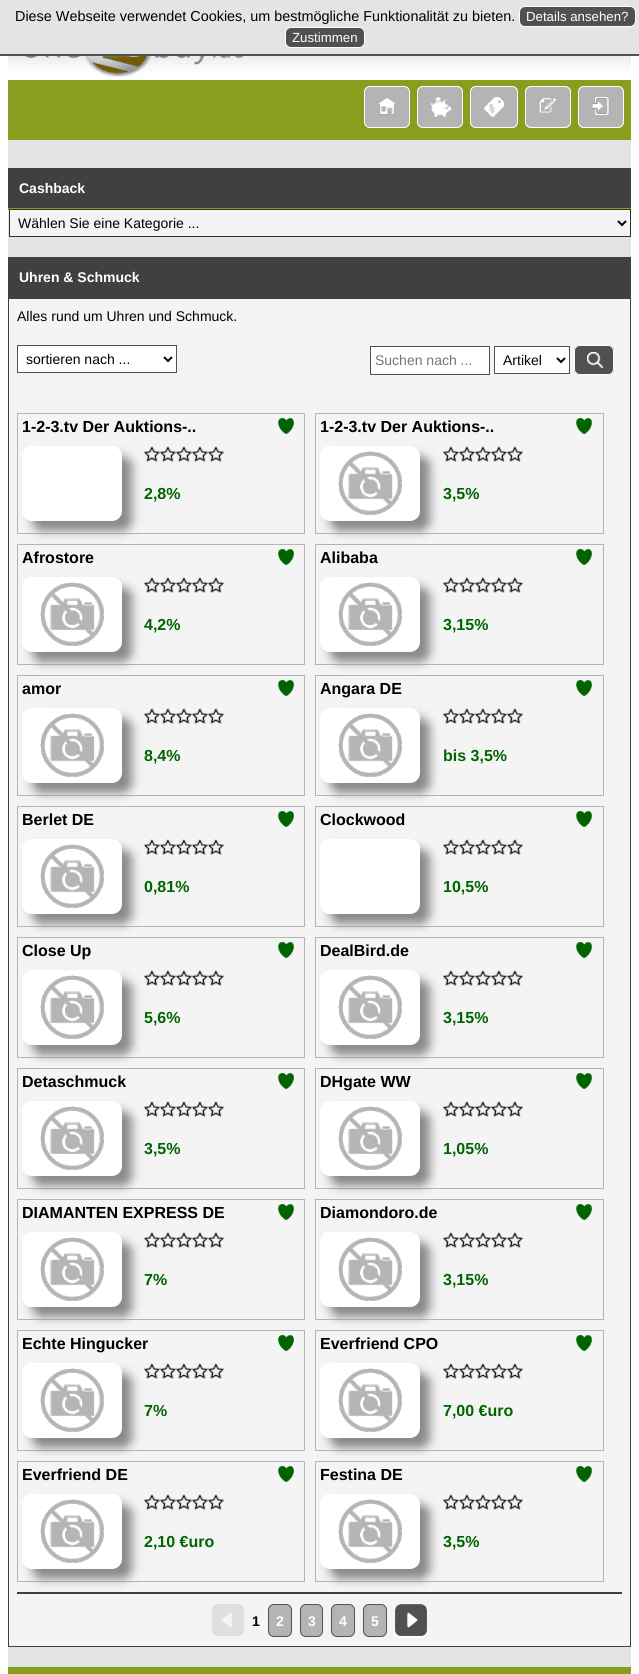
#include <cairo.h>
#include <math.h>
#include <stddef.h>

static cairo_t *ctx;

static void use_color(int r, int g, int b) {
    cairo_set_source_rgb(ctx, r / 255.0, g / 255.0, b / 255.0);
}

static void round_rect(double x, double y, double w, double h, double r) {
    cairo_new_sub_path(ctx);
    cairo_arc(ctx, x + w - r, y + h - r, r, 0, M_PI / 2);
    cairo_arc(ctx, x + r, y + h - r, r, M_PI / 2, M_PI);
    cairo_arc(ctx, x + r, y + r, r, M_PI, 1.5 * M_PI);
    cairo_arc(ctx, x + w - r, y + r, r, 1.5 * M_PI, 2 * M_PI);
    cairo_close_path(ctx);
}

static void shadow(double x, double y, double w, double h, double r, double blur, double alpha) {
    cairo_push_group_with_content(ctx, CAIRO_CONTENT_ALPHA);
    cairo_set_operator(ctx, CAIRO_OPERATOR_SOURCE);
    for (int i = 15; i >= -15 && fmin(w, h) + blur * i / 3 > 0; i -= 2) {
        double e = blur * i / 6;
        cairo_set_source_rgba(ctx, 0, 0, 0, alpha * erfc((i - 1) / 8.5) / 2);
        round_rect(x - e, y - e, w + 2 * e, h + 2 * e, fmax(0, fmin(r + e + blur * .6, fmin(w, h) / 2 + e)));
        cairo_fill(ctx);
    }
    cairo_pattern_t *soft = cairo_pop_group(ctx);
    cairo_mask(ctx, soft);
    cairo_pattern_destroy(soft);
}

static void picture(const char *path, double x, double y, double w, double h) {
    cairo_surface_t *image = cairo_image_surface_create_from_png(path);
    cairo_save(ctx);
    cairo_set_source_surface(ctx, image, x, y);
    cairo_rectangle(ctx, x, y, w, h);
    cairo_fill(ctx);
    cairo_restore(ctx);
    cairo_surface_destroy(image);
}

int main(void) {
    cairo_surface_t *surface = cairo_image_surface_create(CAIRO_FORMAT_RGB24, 639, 1674);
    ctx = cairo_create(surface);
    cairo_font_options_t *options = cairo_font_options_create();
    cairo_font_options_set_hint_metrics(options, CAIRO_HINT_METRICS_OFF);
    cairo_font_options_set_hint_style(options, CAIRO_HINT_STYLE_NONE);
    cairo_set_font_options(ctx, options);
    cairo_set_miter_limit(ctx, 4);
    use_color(255, 255, 255);
    cairo_paint(ctx);
    use_color(228, 228, 228);
    cairo_rectangle(ctx, 0, 0, 639, 54);
    cairo_fill(ctx);
    use_color(80, 80, 80);
    cairo_rectangle(ctx, 0, 54, 639, 2);
    cairo_fill(ctx);
    cairo_select_font_face(ctx, "Liberation Sans", CAIRO_FONT_SLANT_NORMAL, CAIRO_FONT_WEIGHT_NORMAL);
    cairo_set_font_size(ctx, 14.4);
    use_color(0, 0, 0);
    cairo_move_to(ctx, 15, 21);
    cairo_show_text(ctx, "Diese Webseite verwendet Cookies, um bestmögliche Funktionalität zu bieten.");
    use_color(80, 80, 80);
    round_rect(519.5, 6.5, 116, 20, 5.5);
    cairo_fill_preserve(ctx);
    use_color(255, 255, 255);
    cairo_set_line_width(ctx, 1);
    cairo_stroke(ctx);
    cairo_set_font_size(ctx, 13.25);
    cairo_move_to(ctx, 526, 21);
    cairo_show_text(ctx, "Details ansehen?");
    use_color(80, 80, 80);
    round_rect(285.5, 27.5, 79, 20, 5.5);
    cairo_fill_preserve(ctx);
    use_color(255, 255, 255);
    cairo_stroke(ctx);
    cairo_move_to(ctx, 292, 42);
    cairo_show_text(ctx, "Zustimmen");
    picture("img1.png", 8, 56, 623, 24);
    picture("img2.png", 24, 56, 220, 21);
    use_color(137, 158, 31);
    cairo_rectangle(ctx, 8, 80, 623, 60);
    cairo_fill(ctx);
    use_color(180, 180, 180);
    round_rect(364, 86, 46, 42, 6);
    cairo_fill(ctx);
    picture("img3.png", 378, 97, 18, 18);
    round_rect(364.5, 86.5, 45, 41, 5.5);
    use_color(255, 255, 255);
    cairo_stroke(ctx);
    use_color(180, 180, 180);
    round_rect(417, 86, 46, 42, 6);
    cairo_fill(ctx);
    picture("img4.png", 431, 97, 20, 20);
    round_rect(417.5, 86.5, 45, 41, 5.5);
    use_color(255, 255, 255);
    cairo_stroke(ctx);
    use_color(180, 180, 180);
    round_rect(470, 86, 48, 42, 6);
    cairo_fill(ctx);
    picture("img5.png", 484, 97, 20, 20);
    round_rect(470.5, 86.5, 47, 41, 5.5);
    use_color(255, 255, 255);
    cairo_stroke(ctx);
    use_color(180, 180, 180);
    round_rect(525, 86, 46, 42, 6);
    cairo_fill(ctx);
    picture("img6.png", 539, 98, 17, 15);
    round_rect(525.5, 86.5, 45, 41, 5.5);
    use_color(255, 255, 255);
    cairo_stroke(ctx);
    use_color(180, 180, 180);
    round_rect(578, 86, 46, 42, 6);
    cairo_fill(ctx);
    picture("img7.png", 592, 97, 18, 18);
    round_rect(578.5, 86.5, 45, 41, 5.5);
    use_color(255, 255, 255);
    cairo_stroke(ctx);
    use_color(228, 228, 228);
    cairo_rectangle(ctx, 8, 140, 623, 28);
    cairo_fill(ctx);
    cairo_rectangle(ctx, 8, 210, 623, 1457);
    cairo_fill(ctx);
    use_color(64, 64, 64);
    cairo_rectangle(ctx, 8, 168, 623, 40);
    cairo_fill(ctx);
    cairo_select_font_face(ctx, "Liberation Sans", CAIRO_FONT_SLANT_NORMAL, CAIRO_FONT_WEIGHT_BOLD);
    cairo_set_font_size(ctx, 14);
    use_color(255, 255, 255);
    cairo_move_to(ctx, 19, 193);
    cairo_show_text(ctx, "Cashback");
    use_color(137, 158, 31);
    cairo_rectangle(ctx, 8, 208, 623, 2);
    cairo_fill(ctx);
    use_color(244, 244, 244);
    cairo_rectangle(ctx, 9.5, 209.5, 621, 27);
    cairo_fill_preserve(ctx);
    use_color(48, 48, 48);
    cairo_stroke(ctx);
    cairo_new_path(ctx);
    cairo_move_to(ctx, 618, 221);
    cairo_line_to(ctx, 622, 225);
    cairo_line_to(ctx, 626, 221);
    use_color(0, 0, 0);
    cairo_set_line_width(ctx, 2);
    cairo_stroke(ctx);
    cairo_select_font_face(ctx, "Liberation Sans", CAIRO_FONT_SLANT_NORMAL, CAIRO_FONT_WEIGHT_NORMAL);
    cairo_move_to(ctx, 18, 228);
    cairo_show_text(ctx, "Wählen Sie eine Kategorie ...");
    use_color(64, 64, 64);
    cairo_rectangle(ctx, 8, 257, 623, 41);
    cairo_fill(ctx);
    cairo_select_font_face(ctx, "Liberation Sans", CAIRO_FONT_SLANT_NORMAL, CAIRO_FONT_WEIGHT_BOLD);
    use_color(255, 255, 255);
    cairo_move_to(ctx, 19, 282);
    cairo_show_text(ctx, "Uhren & Schmuck");
    use_color(244, 244, 244);
    cairo_rectangle(ctx, 8.5, 298.5, 622, 1348);
    cairo_fill_preserve(ctx);
    use_color(64, 64, 64);
    cairo_set_line_width(ctx, 1);
    cairo_stroke(ctx);
    cairo_select_font_face(ctx, "Liberation Sans", CAIRO_FONT_SLANT_NORMAL, CAIRO_FONT_WEIGHT_NORMAL);
    use_color(0, 0, 0);
    cairo_move_to(ctx, 17, 321);
    cairo_show_text(ctx, "Alles rund um Uhren und Schmuck.");
    use_color(255, 255, 255);
    cairo_rectangle(ctx, 17.5, 345.5, 159, 27);
    cairo_fill_preserve(ctx);
    use_color(80, 80, 80);
    cairo_stroke(ctx);
    cairo_new_path(ctx);
    cairo_move_to(ctx, 164, 357);
    cairo_line_to(ctx, 168, 361);
    cairo_line_to(ctx, 172, 357);
    use_color(0, 0, 0);
    cairo_set_line_width(ctx, 2);
    cairo_stroke(ctx);
    cairo_move_to(ctx, 26, 364);
    cairo_show_text(ctx, "sortieren nach ...");
    use_color(255, 255, 255);
    cairo_rectangle(ctx, 370.5, 346.5, 119, 28);
    cairo_fill_preserve(ctx);
    use_color(80, 80, 80);
    cairo_set_line_width(ctx, 1);
    cairo_stroke(ctx);
    use_color(117, 117, 117);
    cairo_move_to(ctx, 375, 365);
    cairo_show_text(ctx, "Suchen nach ...");
    use_color(255, 255, 255);
    cairo_rectangle(ctx, 494.5, 346.5, 75, 27);
    cairo_fill_preserve(ctx);
    use_color(80, 80, 80);
    cairo_stroke(ctx);
    cairo_new_path(ctx);
    cairo_move_to(ctx, 557, 358);
    cairo_line_to(ctx, 561, 362);
    cairo_line_to(ctx, 565, 358);
    use_color(0, 0, 0);
    cairo_set_line_width(ctx, 2);
    cairo_stroke(ctx);
    cairo_move_to(ctx, 503, 365);
    cairo_show_text(ctx, "Artikel");
    use_color(80, 80, 80);
    round_rect(574, 345, 40, 30, 6);
    cairo_fill(ctx);
    picture("img8.png", 587, 352, 16, 16);
    round_rect(574.5, 345.5, 39, 29, 5.5);
    use_color(255, 255, 255);
    cairo_set_line_width(ctx, 1);
    cairo_stroke(ctx);
    cairo_rectangle(ctx, 17.5, 413.5, 287, 120);
    use_color(180, 180, 180);
    cairo_stroke(ctx);
    cairo_select_font_face(ctx, "Liberation Sans", CAIRO_FONT_SLANT_NORMAL, CAIRO_FONT_WEIGHT_BOLD);
    cairo_set_font_size(ctx, 16);
    use_color(0, 0, 0);
    cairo_move_to(ctx, 22, 432);
    cairo_show_text(ctx, "1-2-3.tv Der Auktions-..");
    picture("img9.png", 278, 418, 16, 16);
    use_color(136, 136, 136);
    shadow(32, 456, 100, 75, 10, 5, 1);
    use_color(255, 255, 255);
    round_rect(22, 446, 100, 75, 10);
    cairo_fill(ctx);
    picture("img10.png", 144, 446, 16, 16);
    picture("img11.png", 160, 446, 16, 16);
    picture("img11.png", 176, 446, 16, 16);
    picture("img11.png", 192, 446, 16, 16);
    picture("img11.png", 208, 446, 16, 16);
    use_color(0, 100, 0);
    cairo_move_to(ctx, 144, 499);
    cairo_show_text(ctx, "2,8%");
    cairo_rectangle(ctx, 315.5, 413.5, 288, 120);
    use_color(180, 180, 180);
    cairo_stroke(ctx);
    use_color(0, 0, 0);
    cairo_move_to(ctx, 320, 432);
    cairo_show_text(ctx, "1-2-3.tv Der Auktions-..");
    picture("img9.png", 576, 418, 16, 16);
    use_color(136, 136, 136);
    shadow(330, 456, 100, 75, 10, 5, 1);
    use_color(255, 255, 255);
    round_rect(320, 446, 100, 75, 10);
    cairo_fill(ctx);
    picture("img12.png", 338, 451, 64, 64);
    picture("img10.png", 443, 446, 16, 16);
    picture("img11.png", 459, 446, 16, 16);
    picture("img11.png", 475, 446, 16, 16);
    picture("img11.png", 491, 446, 16, 16);
    picture("img11.png", 507, 446, 16, 16);
    use_color(0, 100, 0);
    cairo_move_to(ctx, 443, 499);
    cairo_show_text(ctx, "3,5%");
    cairo_rectangle(ctx, 17.5, 544.5, 287, 120);
    use_color(180, 180, 180);
    cairo_stroke(ctx);
    use_color(0, 0, 0);
    cairo_move_to(ctx, 22, 563);
    cairo_show_text(ctx, "Afrostore");
    picture("img9.png", 278, 549, 16, 16);
    use_color(136, 136, 136);
    shadow(32, 587, 100, 75, 10, 5, 1);
    use_color(255, 255, 255);
    round_rect(22, 577, 100, 75, 10);
    cairo_fill(ctx);
    picture("img12.png", 40, 582, 64, 64);
    picture("img10.png", 144, 577, 16, 16);
    picture("img11.png", 160, 577, 16, 16);
    picture("img11.png", 176, 577, 16, 16);
    picture("img11.png", 192, 577, 16, 16);
    picture("img11.png", 208, 577, 16, 16);
    use_color(0, 100, 0);
    cairo_move_to(ctx, 144, 630);
    cairo_show_text(ctx, "4,2%");
    cairo_rectangle(ctx, 315.5, 544.5, 288, 120);
    use_color(180, 180, 180);
    cairo_stroke(ctx);
    use_color(0, 0, 0);
    cairo_move_to(ctx, 320, 563);
    cairo_show_text(ctx, "Alibaba");
    picture("img9.png", 576, 549, 16, 16);
    use_color(136, 136, 136);
    shadow(330, 587, 100, 75, 10, 5, 1);
    use_color(255, 255, 255);
    round_rect(320, 577, 100, 75, 10);
    cairo_fill(ctx);
    picture("img12.png", 338, 582, 64, 64);
    picture("img10.png", 443, 577, 16, 16);
    picture("img11.png", 459, 577, 16, 16);
    picture("img11.png", 475, 577, 16, 16);
    picture("img11.png", 491, 577, 16, 16);
    picture("img11.png", 507, 577, 16, 16);
    use_color(0, 100, 0);
    cairo_move_to(ctx, 443, 630);
    cairo_show_text(ctx, "3,15%");
    cairo_rectangle(ctx, 17.5, 675.5, 287, 120);
    use_color(180, 180, 180);
    cairo_stroke(ctx);
    use_color(0, 0, 0);
    cairo_move_to(ctx, 22, 694);
    cairo_show_text(ctx, "amor");
    picture("img9.png", 278, 680, 16, 16);
    use_color(136, 136, 136);
    shadow(32, 718, 100, 75, 10, 5, 1);
    use_color(255, 255, 255);
    round_rect(22, 708, 100, 75, 10);
    cairo_fill(ctx);
    picture("img12.png", 40, 713, 64, 64);
    picture("img10.png", 144, 708, 16, 16);
    picture("img11.png", 160, 708, 16, 16);
    picture("img11.png", 176, 708, 16, 16);
    picture("img11.png", 192, 708, 16, 16);
    picture("img11.png", 208, 708, 16, 16);
    use_color(0, 100, 0);
    cairo_move_to(ctx, 144, 761);
    cairo_show_text(ctx, "8,4%");
    cairo_rectangle(ctx, 315.5, 675.5, 288, 120);
    use_color(180, 180, 180);
    cairo_stroke(ctx);
    use_color(0, 0, 0);
    cairo_move_to(ctx, 320, 694);
    cairo_show_text(ctx, "Angara DE");
    picture("img9.png", 576, 680, 16, 16);
    use_color(136, 136, 136);
    shadow(330, 718, 100, 75, 10, 5, 1);
    use_color(255, 255, 255);
    round_rect(320, 708, 100, 75, 10);
    cairo_fill(ctx);
    picture("img12.png", 338, 713, 64, 64);
    picture("img10.png", 443, 708, 16, 16);
    picture("img11.png", 459, 708, 16, 16);
    picture("img11.png", 475, 708, 16, 16);
    picture("img11.png", 491, 708, 16, 16);
    picture("img11.png", 507, 708, 16, 16);
    use_color(0, 100, 0);
    cairo_move_to(ctx, 443, 761);
    cairo_show_text(ctx, "bis 3,5%");
    cairo_rectangle(ctx, 17.5, 806.5, 287, 120);
    use_color(180, 180, 180);
    cairo_stroke(ctx);
    use_color(0, 0, 0);
    cairo_move_to(ctx, 22, 825);
    cairo_show_text(ctx, "Berlet DE");
    picture("img9.png", 278, 811, 16, 16);
    use_color(136, 136, 136);
    shadow(32, 849, 100, 75, 10, 5, 1);
    use_color(255, 255, 255);
    round_rect(22, 839, 100, 75, 10);
    cairo_fill(ctx);
    picture("img12.png", 40, 844, 64, 64);
    picture("img10.png", 144, 839, 16, 16);
    picture("img11.png", 160, 839, 16, 16);
    picture("img11.png", 176, 839, 16, 16);
    picture("img11.png", 192, 839, 16, 16);
    picture("img11.png", 208, 839, 16, 16);
    use_color(0, 100, 0);
    cairo_move_to(ctx, 144, 892);
    cairo_show_text(ctx, "0,81%");
    cairo_rectangle(ctx, 315.5, 806.5, 288, 120);
    use_color(180, 180, 180);
    cairo_stroke(ctx);
    use_color(0, 0, 0);
    cairo_move_to(ctx, 320, 825);
    cairo_show_text(ctx, "Clockwood");
    picture("img9.png", 576, 811, 16, 16);
    use_color(136, 136, 136);
    shadow(330, 849, 100, 75, 10, 5, 1);
    use_color(255, 255, 255);
    round_rect(320, 839, 100, 75, 10);
    cairo_fill(ctx);
    picture("img10.png", 443, 839, 16, 16);
    picture("img11.png", 459, 839, 16, 16);
    picture("img11.png", 475, 839, 16, 16);
    picture("img11.png", 491, 839, 16, 16);
    picture("img11.png", 507, 839, 16, 16);
    use_color(0, 100, 0);
    cairo_move_to(ctx, 443, 892);
    cairo_show_text(ctx, "10,5%");
    cairo_rectangle(ctx, 17.5, 937.5, 287, 120);
    use_color(180, 180, 180);
    cairo_stroke(ctx);
    use_color(0, 0, 0);
    cairo_move_to(ctx, 22, 956);
    cairo_show_text(ctx, "Close Up");
    picture("img9.png", 278, 942, 16, 16);
    use_color(136, 136, 136);
    shadow(32, 980, 100, 75, 10, 5, 1);
    use_color(255, 255, 255);
    round_rect(22, 970, 100, 75, 10);
    cairo_fill(ctx);
    picture("img12.png", 40, 975, 64, 64);
    picture("img10.png", 144, 970, 16, 16);
    picture("img11.png", 160, 970, 16, 16);
    picture("img11.png", 176, 970, 16, 16);
    picture("img11.png", 192, 970, 16, 16);
    picture("img11.png", 208, 970, 16, 16);
    use_color(0, 100, 0);
    cairo_move_to(ctx, 144, 1023);
    cairo_show_text(ctx, "5,6%");
    cairo_rectangle(ctx, 315.5, 937.5, 288, 120);
    use_color(180, 180, 180);
    cairo_stroke(ctx);
    use_color(0, 0, 0);
    cairo_move_to(ctx, 320, 956);
    cairo_show_text(ctx, "DealBird.de");
    picture("img9.png", 576, 942, 16, 16);
    use_color(136, 136, 136);
    shadow(330, 980, 100, 75, 10, 5, 1);
    use_color(255, 255, 255);
    round_rect(320, 970, 100, 75, 10);
    cairo_fill(ctx);
    picture("img12.png", 338, 975, 64, 64);
    picture("img10.png", 443, 970, 16, 16);
    picture("img11.png", 459, 970, 16, 16);
    picture("img11.png", 475, 970, 16, 16);
    picture("img11.png", 491, 970, 16, 16);
    picture("img11.png", 507, 970, 16, 16);
    use_color(0, 100, 0);
    cairo_move_to(ctx, 443, 1023);
    cairo_show_text(ctx, "3,15%");
    cairo_rectangle(ctx, 17.5, 1068.5, 287, 120);
    use_color(180, 180, 180);
    cairo_stroke(ctx);
    use_color(0, 0, 0);
    cairo_move_to(ctx, 22, 1087);
    cairo_show_text(ctx, "Detaschmuck");
    picture("img9.png", 278, 1073, 16, 16);
    use_color(136, 136, 136);
    shadow(32, 1111, 100, 75, 10, 5, 1);
    use_color(255, 255, 255);
    round_rect(22, 1101, 100, 75, 10);
    cairo_fill(ctx);
    picture("img12.png", 40, 1106, 64, 64);
    picture("img10.png", 144, 1101, 16, 16);
    picture("img11.png", 160, 1101, 16, 16);
    picture("img11.png", 176, 1101, 16, 16);
    picture("img11.png", 192, 1101, 16, 16);
    picture("img11.png", 208, 1101, 16, 16);
    use_color(0, 100, 0);
    cairo_move_to(ctx, 144, 1154);
    cairo_show_text(ctx, "3,5%");
    cairo_rectangle(ctx, 315.5, 1068.5, 288, 120);
    use_color(180, 180, 180);
    cairo_stroke(ctx);
    use_color(0, 0, 0);
    cairo_move_to(ctx, 320, 1087);
    cairo_show_text(ctx, "DHgate WW");
    picture("img9.png", 576, 1073, 16, 16);
    use_color(136, 136, 136);
    shadow(330, 1111, 100, 75, 10, 5, 1);
    use_color(255, 255, 255);
    round_rect(320, 1101, 100, 75, 10);
    cairo_fill(ctx);
    picture("img12.png", 338, 1106, 64, 64);
    picture("img10.png", 443, 1101, 16, 16);
    picture("img11.png", 459, 1101, 16, 16);
    picture("img11.png", 475, 1101, 16, 16);
    picture("img11.png", 491, 1101, 16, 16);
    picture("img11.png", 507, 1101, 16, 16);
    use_color(0, 100, 0);
    cairo_move_to(ctx, 443, 1154);
    cairo_show_text(ctx, "1,05%");
    cairo_rectangle(ctx, 17.5, 1199.5, 287, 120);
    use_color(180, 180, 180);
    cairo_stroke(ctx);
    use_color(0, 0, 0);
    cairo_move_to(ctx, 22, 1218);
    cairo_show_text(ctx, "DIAMANTEN EXPRESS DE");
    picture("img9.png", 278, 1204, 16, 16);
    use_color(136, 136, 136);
    shadow(32, 1242, 100, 75, 10, 5, 1);
    use_color(255, 255, 255);
    round_rect(22, 1232, 100, 75, 10);
    cairo_fill(ctx);
    picture("img12.png", 40, 1237, 64, 64);
    picture("img10.png", 144, 1232, 16, 16);
    picture("img11.png", 160, 1232, 16, 16);
    picture("img11.png", 176, 1232, 16, 16);
    picture("img11.png", 192, 1232, 16, 16);
    picture("img11.png", 208, 1232, 16, 16);
    use_color(0, 100, 0);
    cairo_move_to(ctx, 144, 1285);
    cairo_show_text(ctx, "7%");
    cairo_rectangle(ctx, 315.5, 1199.5, 288, 120);
    use_color(180, 180, 180);
    cairo_stroke(ctx);
    use_color(0, 0, 0);
    cairo_move_to(ctx, 320, 1218);
    cairo_show_text(ctx, "Diamondoro.de");
    picture("img9.png", 576, 1204, 16, 16);
    use_color(136, 136, 136);
    shadow(330, 1242, 100, 75, 10, 5, 1);
    use_color(255, 255, 255);
    round_rect(320, 1232, 100, 75, 10);
    cairo_fill(ctx);
    picture("img12.png", 338, 1237, 64, 64);
    picture("img10.png", 443, 1232, 16, 16);
    picture("img11.png", 459, 1232, 16, 16);
    picture("img11.png", 475, 1232, 16, 16);
    picture("img11.png", 491, 1232, 16, 16);
    picture("img11.png", 507, 1232, 16, 16);
    use_color(0, 100, 0);
    cairo_move_to(ctx, 443, 1285);
    cairo_show_text(ctx, "3,15%");
    cairo_rectangle(ctx, 17.5, 1330.5, 287, 120);
    use_color(180, 180, 180);
    cairo_stroke(ctx);
    use_color(0, 0, 0);
    cairo_move_to(ctx, 22, 1349);
    cairo_show_text(ctx, "Echte Hingucker");
    picture("img9.png", 278, 1335, 16, 16);
    use_color(136, 136, 136);
    shadow(32, 1373, 100, 75, 10, 5, 1);
    use_color(255, 255, 255);
    round_rect(22, 1363, 100, 75, 10);
    cairo_fill(ctx);
    picture("img12.png", 40, 1368, 64, 64);
    picture("img10.png", 144, 1363, 16, 16);
    picture("img11.png", 160, 1363, 16, 16);
    picture("img11.png", 176, 1363, 16, 16);
    picture("img11.png", 192, 1363, 16, 16);
    picture("img11.png", 208, 1363, 16, 16);
    use_color(0, 100, 0);
    cairo_move_to(ctx, 144, 1416);
    cairo_show_text(ctx, "7%");
    cairo_rectangle(ctx, 315.5, 1330.5, 288, 120);
    use_color(180, 180, 180);
    cairo_stroke(ctx);
    use_color(0, 0, 0);
    cairo_move_to(ctx, 320, 1349);
    cairo_show_text(ctx, "Everfriend CPO");
    picture("img9.png", 576, 1335, 16, 16);
    use_color(136, 136, 136);
    shadow(330, 1373, 100, 75, 10, 5, 1);
    use_color(255, 255, 255);
    round_rect(320, 1363, 100, 75, 10);
    cairo_fill(ctx);
    picture("img12.png", 338, 1368, 64, 64);
    picture("img10.png", 443, 1363, 16, 16);
    picture("img11.png", 459, 1363, 16, 16);
    picture("img11.png", 475, 1363, 16, 16);
    picture("img11.png", 491, 1363, 16, 16);
    picture("img11.png", 507, 1363, 16, 16);
    use_color(0, 100, 0);
    cairo_move_to(ctx, 443, 1416);
    cairo_show_text(ctx, "7,00 €uro");
    cairo_rectangle(ctx, 17.5, 1461.5, 287, 120);
    use_color(180, 180, 180);
    cairo_stroke(ctx);
    use_color(0, 0, 0);
    cairo_move_to(ctx, 22, 1480);
    cairo_show_text(ctx, "Everfriend DE");
    picture("img9.png", 278, 1466, 16, 16);
    use_color(64, 64, 64);
    cairo_rectangle(ctx, 17, 1592, 605, 2);
    cairo_fill(ctx);
    use_color(136, 136, 136);
    shadow(32, 1504, 100, 75, 10, 5, 1);
    use_color(255, 255, 255);
    round_rect(22, 1494, 100, 75, 10);
    cairo_fill(ctx);
    picture("img12.png", 40, 1499, 64, 64);
    picture("img10.png", 144, 1494, 16, 16);
    picture("img11.png", 160, 1494, 16, 16);
    picture("img11.png", 176, 1494, 16, 16);
    picture("img11.png", 192, 1494, 16, 16);
    picture("img11.png", 208, 1494, 16, 16);
    use_color(0, 100, 0);
    cairo_move_to(ctx, 144, 1547);
    cairo_show_text(ctx, "2,10 €uro");
    cairo_rectangle(ctx, 315.5, 1461.5, 288, 120);
    use_color(180, 180, 180);
    cairo_stroke(ctx);
    use_color(0, 0, 0);
    cairo_move_to(ctx, 320, 1480);
    cairo_show_text(ctx, "Festina DE");
    picture("img9.png", 576, 1466, 16, 16);
    use_color(136, 136, 136);
    shadow(330, 1504, 100, 75, 10, 5, 1);
    use_color(255, 255, 255);
    round_rect(320, 1494, 100, 75, 10);
    cairo_fill(ctx);
    picture("img12.png", 338, 1499, 64, 64);
    picture("img10.png", 443, 1494, 16, 16);
    picture("img11.png", 459, 1494, 16, 16);
    picture("img11.png", 475, 1494, 16, 16);
    picture("img11.png", 491, 1494, 16, 16);
    picture("img11.png", 507, 1494, 16, 16);
    use_color(0, 100, 0);
    cairo_move_to(ctx, 443, 1547);
    cairo_show_text(ctx, "3,5%");
    picture("img13.png", 212, 1604, 32, 32);
    use_color(255, 255, 255);
    round_rect(395, 1604, 32, 34, 6);
    cairo_fill(ctx);
    cairo_set_font_size(ctx, 14);
    use_color(0, 0, 0);
    cairo_move_to(ctx, 252, 1626);
    cairo_show_text(ctx, "1");
    use_color(180, 180, 180);
    round_rect(268.5, 1604.5, 23, 32, 5.5);
    cairo_fill_preserve(ctx);
    use_color(80, 80, 80);
    cairo_stroke(ctx);
    use_color(255, 255, 255);
    cairo_move_to(ctx, 276, 1626);
    cairo_show_text(ctx, "2");
    use_color(180, 180, 180);
    round_rect(300.5, 1604.5, 22, 32, 5.5);
    cairo_fill_preserve(ctx);
    use_color(80, 80, 80);
    cairo_stroke(ctx);
    use_color(255, 255, 255);
    cairo_move_to(ctx, 308, 1626);
    cairo_show_text(ctx, "3");
    use_color(180, 180, 180);
    round_rect(331.5, 1604.5, 23, 32, 5.5);
    cairo_fill_preserve(ctx);
    use_color(80, 80, 80);
    cairo_stroke(ctx);
    use_color(255, 255, 255);
    cairo_move_to(ctx, 339, 1626);
    cairo_show_text(ctx, "4");
    use_color(180, 180, 180);
    round_rect(363.5, 1604.5, 23, 32, 5.5);
    cairo_fill_preserve(ctx);
    use_color(80, 80, 80);
    cairo_stroke(ctx);
    use_color(255, 255, 255);
    cairo_move_to(ctx, 371, 1626);
    cairo_show_text(ctx, "5");
    picture("img14.png", 395, 1604, 32, 32);
    use_color(137, 158, 31);
    cairo_rectangle(ctx, 8, 1667, 623, 7);
    cairo_fill(ctx);
    cairo_surface_write_to_png(surface, "result.png");
    cairo_font_options_destroy(options);
    cairo_destroy(ctx);
    cairo_surface_destroy(surface);
    return 0;
}
